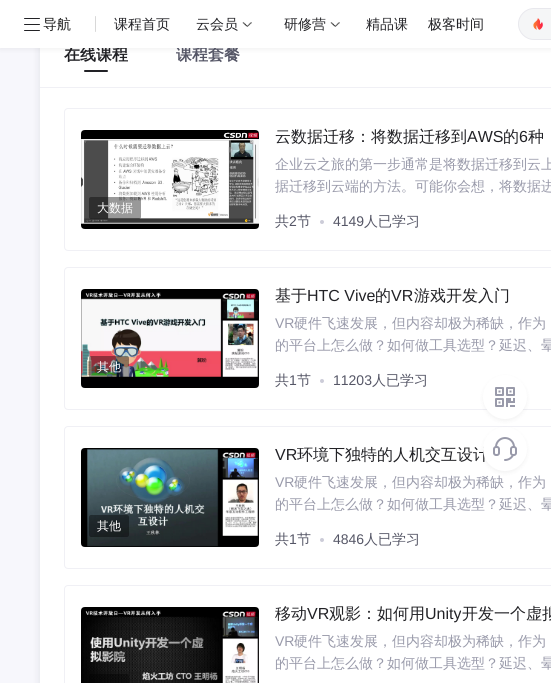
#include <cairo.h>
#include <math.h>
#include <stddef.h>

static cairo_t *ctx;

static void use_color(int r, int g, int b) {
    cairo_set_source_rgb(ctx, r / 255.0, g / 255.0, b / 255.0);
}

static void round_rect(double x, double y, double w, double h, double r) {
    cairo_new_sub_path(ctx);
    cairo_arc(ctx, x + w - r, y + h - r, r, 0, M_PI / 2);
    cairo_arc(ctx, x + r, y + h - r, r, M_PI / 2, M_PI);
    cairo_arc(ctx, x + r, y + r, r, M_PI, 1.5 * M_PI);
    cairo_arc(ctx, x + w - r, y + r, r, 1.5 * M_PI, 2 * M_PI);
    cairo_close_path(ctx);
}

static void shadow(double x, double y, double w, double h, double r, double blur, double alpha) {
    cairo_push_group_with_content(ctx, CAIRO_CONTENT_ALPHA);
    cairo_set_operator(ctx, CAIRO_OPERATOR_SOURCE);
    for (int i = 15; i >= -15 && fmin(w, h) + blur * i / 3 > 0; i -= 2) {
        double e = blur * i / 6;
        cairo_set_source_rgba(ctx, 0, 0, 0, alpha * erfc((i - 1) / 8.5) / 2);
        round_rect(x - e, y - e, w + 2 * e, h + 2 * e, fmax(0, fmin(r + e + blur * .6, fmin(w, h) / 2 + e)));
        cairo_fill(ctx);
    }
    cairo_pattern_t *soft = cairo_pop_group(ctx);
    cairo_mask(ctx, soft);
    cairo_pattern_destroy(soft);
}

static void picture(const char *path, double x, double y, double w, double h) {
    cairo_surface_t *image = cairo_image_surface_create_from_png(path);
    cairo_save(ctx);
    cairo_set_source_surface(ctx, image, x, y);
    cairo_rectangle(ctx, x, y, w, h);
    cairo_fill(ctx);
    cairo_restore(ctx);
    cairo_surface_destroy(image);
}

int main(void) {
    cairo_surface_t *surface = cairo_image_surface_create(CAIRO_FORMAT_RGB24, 551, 683);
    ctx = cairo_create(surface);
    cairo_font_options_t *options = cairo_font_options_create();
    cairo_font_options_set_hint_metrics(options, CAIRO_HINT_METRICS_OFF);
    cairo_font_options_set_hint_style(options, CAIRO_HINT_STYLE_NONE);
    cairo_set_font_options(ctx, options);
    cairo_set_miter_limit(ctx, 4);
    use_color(247, 247, 252);
    cairo_paint(ctx);
    use_color(7, 17, 27);
    shadow(40, 27, 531, 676, 8, 4, 0.1);
    use_color(255, 255, 255);
    cairo_rectangle(ctx, 40, 48, 511, 635);
    cairo_fill(ctx);
    use_color(0, 0, 0);
    shadow(0, 2, 551, 48, 0, 2, 0.05);
    cairo_select_font_face(ctx, "WenQuanYi Zen Hei", CAIRO_FONT_SLANT_NORMAL, CAIRO_FONT_WEIGHT_BOLD);
    cairo_set_font_size(ctx, 16);
    use_color(34, 34, 38);
    cairo_move_to(ctx, 64, 60);
    cairo_show_text(ctx, "在线课程");
    use_color(85, 86, 102);
    cairo_move_to(ctx, 176, 60);
    cairo_show_text(ctx, "课程套餐");
    use_color(255, 255, 255);
    cairo_rectangle(ctx, 0, 0, 551, 48);
    cairo_fill(ctx);
    picture("img1.png", 24, 18, 16, 13);
    cairo_select_font_face(ctx, "WenQuanYi Zen Hei Medium", CAIRO_FONT_SLANT_NORMAL, CAIRO_FONT_WEIGHT_NORMAL);
    cairo_set_font_size(ctx, 14);
    use_color(26, 26, 26);
    cairo_move_to(ctx, 43, 29);
    cairo_show_text(ctx, "导航");
    use_color(216, 216, 216);
    round_rect(95, 16, 1, 16, 0.5);
    cairo_fill(ctx);
    use_color(34, 34, 38);
    cairo_move_to(ctx, 114, 29);
    cairo_show_text(ctx, "课程首页");
    cairo_move_to(ctx, 196, 29);
    cairo_show_text(ctx, "云会员");
    picture("img2.png", 242, 22, 10, 5);
    cairo_move_to(ctx, 284, 29);
    cairo_show_text(ctx, "研修营");
    picture("img2.png", 330, 22, 10, 5);
    cairo_move_to(ctx, 366, 29);
    cairo_show_text(ctx, "精品课");
    cairo_move_to(ctx, 428, 29);
    cairo_show_text(ctx, "极客时间");
    use_color(245, 246, 247);
    round_rect(518.5, 8.5, 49, 31, 15.5);
    cairo_fill_preserve(ctx);
    use_color(232, 232, 237);
    cairo_set_line_width(ctx, 1);
    cairo_stroke(ctx);
    picture("img3.png", 533, 18, 10, 12);
    use_color(240, 240, 245);
    cairo_rectangle(ctx, 40, 87, 511, 1);
    cairo_fill(ctx);
    use_color(34, 34, 38);
    round_rect(84, 70, 24, 2, 1);
    cairo_fill(ctx);
    round_rect(64.5, 108.5, 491, 142, 3.5);
    use_color(240, 240, 245);
    cairo_stroke(ctx);
    picture("img4.png", 81, 130, 178, 99);
    cairo_set_source_rgba(ctx, 0, 0, 0, 0.4);
    round_rect(89, 197, 52, 22, 2);
    cairo_fill(ctx);
    cairo_set_font_size(ctx, 12);
    use_color(255, 255, 255);
    cairo_move_to(ctx, 97, 212);
    cairo_show_text(ctx, "大数据");
    cairo_set_font_size(ctx, 16);
    use_color(34, 34, 38);
    cairo_move_to(ctx, 275, 142);
    cairo_show_text(ctx, "云数据迁移：将数据迁移到");
    cairo_select_font_face(ctx, "Liberation Sans", CAIRO_FONT_SLANT_NORMAL, CAIRO_FONT_WEIGHT_NORMAL);
    cairo_move_to(ctx, 467, 142);
    cairo_show_text(ctx, "AWS");
    cairo_select_font_face(ctx, "WenQuanYi Zen Hei Medium", CAIRO_FONT_SLANT_NORMAL, CAIRO_FONT_WEIGHT_NORMAL);
    cairo_move_to(ctx, 503, 142);
    cairo_show_text(ctx, "的");
    cairo_select_font_face(ctx, "Liberation Sans", CAIRO_FONT_SLANT_NORMAL, CAIRO_FONT_WEIGHT_NORMAL);
    cairo_move_to(ctx, 519, 142);
    cairo_show_text(ctx, "6");
    cairo_select_font_face(ctx, "WenQuanYi Zen Hei Medium", CAIRO_FONT_SLANT_NORMAL, CAIRO_FONT_WEIGHT_NORMAL);
    cairo_move_to(ctx, 528, 142);
    cairo_show_text(ctx, "种");
    cairo_set_font_size(ctx, 14);
    use_color(153, 154, 170);
    cairo_move_to(ctx, 275, 169);
    cairo_show_text(ctx, "企业云之旅的第一步通常是将数据迁移到云上");
    cairo_move_to(ctx, 275, 191);
    cairo_show_text(ctx, "据迁移到云端的方法。可能你会想，将数据进");
    use_color(85, 86, 102);
    cairo_move_to(ctx, 275, 226);
    cairo_show_text(ctx, "共");
    cairo_select_font_face(ctx, "Liberation Sans", CAIRO_FONT_SLANT_NORMAL, CAIRO_FONT_WEIGHT_NORMAL);
    cairo_move_to(ctx, 289, 226);
    cairo_show_text(ctx, "2");
    cairo_select_font_face(ctx, "WenQuanYi Zen Hei Medium", CAIRO_FONT_SLANT_NORMAL, CAIRO_FONT_WEIGHT_NORMAL);
    cairo_move_to(ctx, 297, 226);
    cairo_show_text(ctx, "节");
    use_color(204, 204, 216);
    cairo_new_path(ctx);
    cairo_arc(ctx, 322, 222, 2, 0, 2 * M_PI);
    cairo_fill(ctx);
    cairo_select_font_face(ctx, "Liberation Sans", CAIRO_FONT_SLANT_NORMAL, CAIRO_FONT_WEIGHT_NORMAL);
    use_color(85, 86, 102);
    cairo_move_to(ctx, 333, 226);
    cairo_show_text(ctx, "4149");
    cairo_select_font_face(ctx, "WenQuanYi Zen Hei Medium", CAIRO_FONT_SLANT_NORMAL, CAIRO_FONT_WEIGHT_NORMAL);
    cairo_move_to(ctx, 364, 226);
    cairo_show_text(ctx, "人已学习");
    round_rect(64.5, 267.5, 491, 142, 3.5);
    use_color(240, 240, 245);
    cairo_stroke(ctx);
    picture("img5.png", 81, 289, 178, 99);
    cairo_set_source_rgba(ctx, 0, 0, 0, 0.4);
    round_rect(89, 356, 40, 22, 2);
    cairo_fill(ctx);
    cairo_set_font_size(ctx, 12);
    use_color(255, 255, 255);
    cairo_move_to(ctx, 97, 371);
    cairo_show_text(ctx, "其他");
    cairo_set_font_size(ctx, 16);
    use_color(34, 34, 38);
    cairo_move_to(ctx, 275, 301);
    cairo_show_text(ctx, "基于");
    cairo_select_font_face(ctx, "Liberation Sans", CAIRO_FONT_SLANT_NORMAL, CAIRO_FONT_WEIGHT_NORMAL);
    cairo_move_to(ctx, 307, 301);
    cairo_show_text(ctx, "HTC Vive");
    cairo_select_font_face(ctx, "WenQuanYi Zen Hei Medium", CAIRO_FONT_SLANT_NORMAL, CAIRO_FONT_WEIGHT_NORMAL);
    cairo_move_to(ctx, 375, 301);
    cairo_show_text(ctx, "的");
    cairo_select_font_face(ctx, "Liberation Sans", CAIRO_FONT_SLANT_NORMAL, CAIRO_FONT_WEIGHT_NORMAL);
    cairo_move_to(ctx, 391, 301);
    cairo_show_text(ctx, "VR");
    cairo_select_font_face(ctx, "WenQuanYi Zen Hei Medium", CAIRO_FONT_SLANT_NORMAL, CAIRO_FONT_WEIGHT_NORMAL);
    cairo_move_to(ctx, 414, 301);
    cairo_show_text(ctx, "游戏开发入门");
    cairo_select_font_face(ctx, "Liberation Sans", CAIRO_FONT_SLANT_NORMAL, CAIRO_FONT_WEIGHT_NORMAL);
    cairo_set_font_size(ctx, 14);
    use_color(153, 154, 170);
    cairo_move_to(ctx, 275, 328);
    cairo_show_text(ctx, "VR");
    cairo_select_font_face(ctx, "WenQuanYi Zen Hei Medium", CAIRO_FONT_SLANT_NORMAL, CAIRO_FONT_WEIGHT_NORMAL);
    cairo_move_to(ctx, 294, 328);
    cairo_show_text(ctx, "硬件飞速发展，但内容却极为稀缺，作为");
    cairo_move_to(ctx, 275, 350);
    cairo_show_text(ctx, "的平台上怎么做？如何做工具选型？延迟、晕");
    use_color(85, 86, 102);
    cairo_move_to(ctx, 275, 385);
    cairo_show_text(ctx, "共");
    cairo_select_font_face(ctx, "Liberation Sans", CAIRO_FONT_SLANT_NORMAL, CAIRO_FONT_WEIGHT_NORMAL);
    cairo_move_to(ctx, 289, 385);
    cairo_show_text(ctx, "1");
    cairo_select_font_face(ctx, "WenQuanYi Zen Hei Medium", CAIRO_FONT_SLANT_NORMAL, CAIRO_FONT_WEIGHT_NORMAL);
    cairo_move_to(ctx, 297, 385);
    cairo_show_text(ctx, "节");
    use_color(204, 204, 216);
    cairo_new_path(ctx);
    cairo_arc(ctx, 322, 381, 2, 0, 2 * M_PI);
    cairo_fill(ctx);
    cairo_select_font_face(ctx, "Liberation Sans", CAIRO_FONT_SLANT_NORMAL, CAIRO_FONT_WEIGHT_NORMAL);
    use_color(85, 86, 102);
    cairo_move_to(ctx, 333, 385);
    cairo_show_text(ctx, "11203");
    cairo_select_font_face(ctx, "WenQuanYi Zen Hei Medium", CAIRO_FONT_SLANT_NORMAL, CAIRO_FONT_WEIGHT_NORMAL);
    cairo_move_to(ctx, 372, 385);
    cairo_show_text(ctx, "人已学习");
    round_rect(64.5, 426.5, 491, 142, 3.5);
    use_color(240, 240, 245);
    cairo_stroke(ctx);
    picture("img6.png", 81, 448, 178, 99);
    cairo_set_source_rgba(ctx, 0, 0, 0, 0.4);
    round_rect(89, 515, 40, 22, 2);
    cairo_fill(ctx);
    cairo_set_font_size(ctx, 12);
    use_color(255, 255, 255);
    cairo_move_to(ctx, 97, 530);
    cairo_show_text(ctx, "其他");
    cairo_select_font_face(ctx, "Liberation Sans", CAIRO_FONT_SLANT_NORMAL, CAIRO_FONT_WEIGHT_NORMAL);
    cairo_set_font_size(ctx, 16);
    use_color(34, 34, 38);
    cairo_move_to(ctx, 275, 460);
    cairo_show_text(ctx, "VR");
    cairo_select_font_face(ctx, "WenQuanYi Zen Hei Medium", CAIRO_FONT_SLANT_NORMAL, CAIRO_FONT_WEIGHT_NORMAL);
    cairo_move_to(ctx, 297, 460);
    cairo_show_text(ctx, "环境下独特的人机交互设计");
    cairo_select_font_face(ctx, "Liberation Sans", CAIRO_FONT_SLANT_NORMAL, CAIRO_FONT_WEIGHT_NORMAL);
    cairo_set_font_size(ctx, 14);
    use_color(153, 154, 170);
    cairo_move_to(ctx, 275, 487);
    cairo_show_text(ctx, "VR");
    cairo_select_font_face(ctx, "WenQuanYi Zen Hei Medium", CAIRO_FONT_SLANT_NORMAL, CAIRO_FONT_WEIGHT_NORMAL);
    cairo_move_to(ctx, 294, 487);
    cairo_show_text(ctx, "硬件飞速发展，但内容却极为稀缺，作为");
    cairo_move_to(ctx, 275, 509);
    cairo_show_text(ctx, "的平台上怎么做？如何做工具选型？延迟、晕");
    use_color(85, 86, 102);
    cairo_move_to(ctx, 275, 544);
    cairo_show_text(ctx, "共");
    cairo_select_font_face(ctx, "Liberation Sans", CAIRO_FONT_SLANT_NORMAL, CAIRO_FONT_WEIGHT_NORMAL);
    cairo_move_to(ctx, 289, 544);
    cairo_show_text(ctx, "1");
    cairo_select_font_face(ctx, "WenQuanYi Zen Hei Medium", CAIRO_FONT_SLANT_NORMAL, CAIRO_FONT_WEIGHT_NORMAL);
    cairo_move_to(ctx, 297, 544);
    cairo_show_text(ctx, "节");
    use_color(204, 204, 216);
    cairo_new_path(ctx);
    cairo_arc(ctx, 322, 540, 2, 0, 2 * M_PI);
    cairo_fill(ctx);
    cairo_select_font_face(ctx, "Liberation Sans", CAIRO_FONT_SLANT_NORMAL, CAIRO_FONT_WEIGHT_NORMAL);
    use_color(85, 86, 102);
    cairo_move_to(ctx, 333, 544);
    cairo_show_text(ctx, "4846");
    cairo_select_font_face(ctx, "WenQuanYi Zen Hei Medium", CAIRO_FONT_SLANT_NORMAL, CAIRO_FONT_WEIGHT_NORMAL);
    cairo_move_to(ctx, 364, 544);
    cairo_show_text(ctx, "人已学习");
    round_rect(64.5, 585.5, 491, 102, 3.5);
    use_color(240, 240, 245);
    cairo_stroke(ctx);
    picture("img7.png", 81, 607, 178, 76);
    cairo_set_source_rgba(ctx, 0, 0, 0, 0.4);
    round_rect(89, 674, 40, 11, 2);
    cairo_fill(ctx);
    cairo_set_font_size(ctx, 16);
    use_color(34, 34, 38);
    cairo_move_to(ctx, 275, 619);
    cairo_show_text(ctx, "移动");
    cairo_select_font_face(ctx, "Liberation Sans", CAIRO_FONT_SLANT_NORMAL, CAIRO_FONT_WEIGHT_NORMAL);
    cairo_move_to(ctx, 307, 619);
    cairo_show_text(ctx, "VR");
    cairo_select_font_face(ctx, "WenQuanYi Zen Hei Medium", CAIRO_FONT_SLANT_NORMAL, CAIRO_FONT_WEIGHT_NORMAL);
    cairo_move_to(ctx, 329, 619);
    cairo_show_text(ctx, "观影：如何用");
    cairo_select_font_face(ctx, "Liberation Sans", CAIRO_FONT_SLANT_NORMAL, CAIRO_FONT_WEIGHT_NORMAL);
    cairo_move_to(ctx, 425, 619);
    cairo_show_text(ctx, "Unity");
    cairo_select_font_face(ctx, "WenQuanYi Zen Hei Medium", CAIRO_FONT_SLANT_NORMAL, CAIRO_FONT_WEIGHT_NORMAL);
    cairo_move_to(ctx, 462, 619);
    cairo_show_text(ctx, "开发一个虚拟");
    cairo_select_font_face(ctx, "Liberation Sans", CAIRO_FONT_SLANT_NORMAL, CAIRO_FONT_WEIGHT_NORMAL);
    cairo_set_font_size(ctx, 14);
    use_color(153, 154, 170);
    cairo_move_to(ctx, 275, 646);
    cairo_show_text(ctx, "VR");
    cairo_select_font_face(ctx, "WenQuanYi Zen Hei Medium", CAIRO_FONT_SLANT_NORMAL, CAIRO_FONT_WEIGHT_NORMAL);
    cairo_move_to(ctx, 294, 646);
    cairo_show_text(ctx, "硬件飞速发展，但内容却极为稀缺，作为");
    cairo_move_to(ctx, 275, 668);
    cairo_show_text(ctx, "的平台上怎么做？如何做工具选型？延迟、晕");
    use_color(0, 0, 0);
    shadow(483, 377, 44, 44, 22, 2, 0.05);
    use_color(255, 255, 255);
    cairo_arc(ctx, 505, 397, 22, 0, 2 * M_PI);
    cairo_fill(ctx);
    picture("img8.png", 495, 387, 20, 20);
    use_color(0, 0, 0);
    shadow(483, 429, 44, 44, 22, 2, 0.05);
    use_color(255, 255, 255);
    cairo_arc(ctx, 505, 449, 22, 0, 2 * M_PI);
    cairo_fill(ctx);
    picture("img9.png", 493, 437, 24, 24);
    cairo_surface_write_to_png(surface, "result.png");
    cairo_font_options_destroy(options);
    cairo_destroy(ctx);
    cairo_surface_destroy(surface);
    return 0;
}
